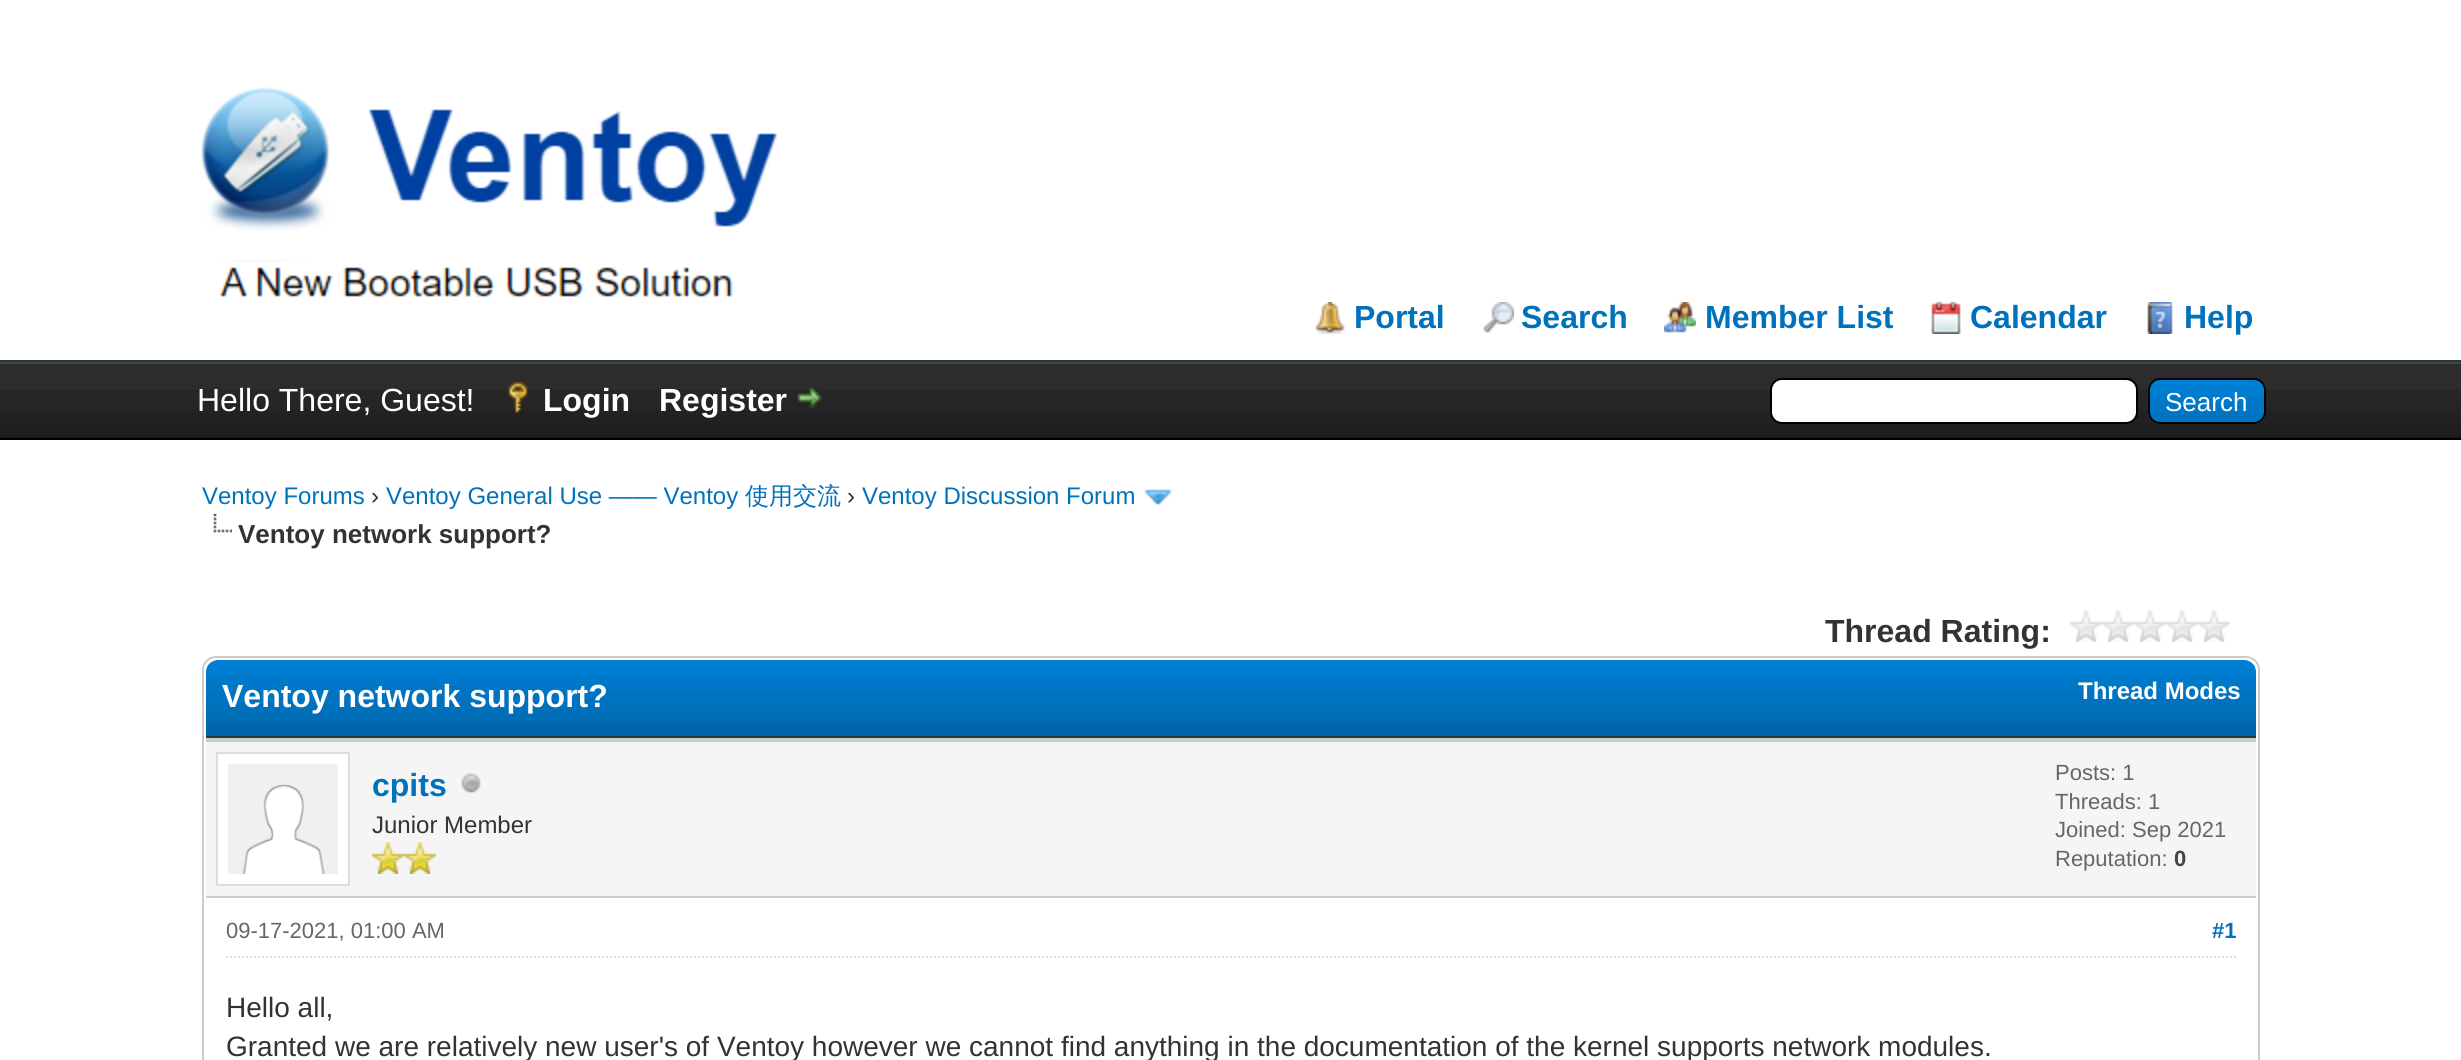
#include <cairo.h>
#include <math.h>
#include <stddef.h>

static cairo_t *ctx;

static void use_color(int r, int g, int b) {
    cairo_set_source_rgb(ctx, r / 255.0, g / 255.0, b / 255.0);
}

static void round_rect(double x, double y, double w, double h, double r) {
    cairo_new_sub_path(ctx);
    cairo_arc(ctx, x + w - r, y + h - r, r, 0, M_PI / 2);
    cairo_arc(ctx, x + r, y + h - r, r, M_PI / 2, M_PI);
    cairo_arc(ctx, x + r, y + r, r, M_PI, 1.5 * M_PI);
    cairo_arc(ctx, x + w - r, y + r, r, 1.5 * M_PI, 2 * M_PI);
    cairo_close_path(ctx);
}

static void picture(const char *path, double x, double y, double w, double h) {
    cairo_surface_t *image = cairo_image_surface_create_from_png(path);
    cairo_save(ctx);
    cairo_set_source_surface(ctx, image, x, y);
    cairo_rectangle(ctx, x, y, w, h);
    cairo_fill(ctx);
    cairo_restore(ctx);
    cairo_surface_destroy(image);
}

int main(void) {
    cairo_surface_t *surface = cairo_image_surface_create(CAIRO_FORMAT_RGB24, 2461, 1060);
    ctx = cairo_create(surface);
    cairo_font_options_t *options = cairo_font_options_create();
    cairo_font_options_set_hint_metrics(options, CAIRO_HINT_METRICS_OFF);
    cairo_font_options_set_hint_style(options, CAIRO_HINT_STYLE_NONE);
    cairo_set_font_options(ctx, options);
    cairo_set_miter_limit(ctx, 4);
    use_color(255, 255, 255);
    cairo_paint(ctx);
    use_color(38, 60, 48);
    cairo_rectangle(ctx, 0, 360, 2461, 2);
    cairo_fill(ctx);
    picture("img1.png", 201, 87, 577, 210);
    picture("img2.png", 1315, 302, 30, 32);
    cairo_select_font_face(ctx, "Liberation Sans", CAIRO_FONT_SLANT_NORMAL, CAIRO_FONT_WEIGHT_BOLD);
    cairo_set_font_size(ctx, 32);
    use_color(0, 114, 188);
    cairo_move_to(ctx, 1354, 328);
    cairo_show_text(ctx, "Portal");
    picture("img3.png", 1483, 302, 31, 31);
    cairo_move_to(ctx, 1521, 328);
    cairo_show_text(ctx, "Search");
    picture("img4.png", 1664, 302, 32, 31);
    cairo_move_to(ctx, 1705, 328);
    cairo_show_text(ctx, "Member List");
    picture("img5.png", 1931, 302, 30, 32);
    cairo_move_to(ctx, 1970, 328);
    cairo_show_text(ctx, "Calendar");
    picture("img6.png", 2147, 302, 26, 32);
    cairo_move_to(ctx, 2184, 328);
    cairo_show_text(ctx, "Help");
    picture("img7.png", 0, 364, 2461, 74);
    use_color(68, 68, 68);
    cairo_rectangle(ctx, 0, 362, 2461, 2);
    cairo_fill(ctx);
    use_color(0, 0, 0);
    cairo_rectangle(ctx, 0, 438, 2461, 2);
    cairo_fill(ctx);
    cairo_select_font_face(ctx, "Liberation Sans", CAIRO_FONT_SLANT_NORMAL, CAIRO_FONT_WEIGHT_NORMAL);
    use_color(255, 255, 255);
    cairo_move_to(ctx, 197, 411);
    cairo_show_text(ctx, "Hello There, Guest!");
    picture("img8.png", 507, 382, 22, 33);
    cairo_select_font_face(ctx, "Liberation Sans", CAIRO_FONT_SLANT_NORMAL, CAIRO_FONT_WEIGHT_BOLD);
    cairo_move_to(ctx, 543, 411);
    cairo_show_text(ctx, "Login");
    cairo_move_to(ctx, 659, 411);
    cairo_show_text(ctx, "Register");
    picture("img9.png", 797, 387, 26, 22);
    round_rect(1771, 379, 366, 44, 11);
    cairo_fill_preserve(ctx);
    use_color(0, 0, 0);
    cairo_stroke(ctx);
    picture("img10.png", 2148, 380, 118, 44);
    round_rect(2149, 379, 116, 44, 11);
    cairo_stroke(ctx);
    cairo_select_font_face(ctx, "Liberation Sans", CAIRO_FONT_SLANT_NORMAL, CAIRO_FONT_WEIGHT_NORMAL);
    cairo_set_font_size(ctx, 26);
    use_color(255, 255, 255);
    cairo_move_to(ctx, 2165, 411);
    cairo_show_text(ctx, "Search");
    cairo_set_font_size(ctx, 24);
    use_color(0, 114, 188);
    cairo_move_to(ctx, 202, 504);
    cairo_show_text(ctx, "Ventoy Forums");
    use_color(51, 51, 51);
    cairo_move_to(ctx, 371, 504);
    cairo_show_text(ctx, "›");
    use_color(0, 114, 188);
    cairo_move_to(ctx, 386, 504);
    cairo_show_text(ctx, "Ventoy General Use —— Ventoy");
    cairo_select_font_face(ctx, "WenQuanYi Zen Hei Medium", CAIRO_FONT_SLANT_NORMAL, CAIRO_FONT_WEIGHT_NORMAL);
    cairo_move_to(ctx, 745, 504);
    cairo_show_text(ctx, "使用交流");
    cairo_select_font_face(ctx, "Liberation Sans", CAIRO_FONT_SLANT_NORMAL, CAIRO_FONT_WEIGHT_NORMAL);
    use_color(51, 51, 51);
    cairo_move_to(ctx, 847, 504);
    cairo_show_text(ctx, "›");
    use_color(0, 114, 188);
    cairo_move_to(ctx, 862, 504);
    cairo_show_text(ctx, "Ventoy Discussion Forum");
    picture("img11.png", 1143, 489, 30, 16);
    picture("img12.png", 213, 514, 19, 19);
    cairo_select_font_face(ctx, "Liberation Sans", CAIRO_FONT_SLANT_NORMAL, CAIRO_FONT_WEIGHT_BOLD);
    cairo_set_font_size(ctx, 26);
    use_color(51, 51, 51);
    cairo_move_to(ctx, 238, 543);
    cairo_show_text(ctx, "Ventoy network support?");
    cairo_set_font_size(ctx, 32);
    cairo_move_to(ctx, 1825, 642);
    cairo_show_text(ctx, "Thread Rating:");
    picture("img13.png", 2070, 610, 160, 32);
    round_rect(203, 657, 2056, 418, 13);
    use_color(204, 204, 204);
    cairo_stroke(ctx);
    picture("img14.png", 206, 660, 2050, 76);
    use_color(38, 60, 48);
    cairo_rectangle(ctx, 206, 736, 2050, 2);
    cairo_fill(ctx);
    use_color(255, 255, 255);
    cairo_move_to(ctx, 222, 707);
    cairo_show_text(ctx, "Ventoy network support?");
    cairo_set_font_size(ctx, 24);
    cairo_move_to(ctx, 2078, 699);
    cairo_show_text(ctx, "Thread Modes");
    use_color(245, 245, 245);
    cairo_rectangle(ctx, 206, 742, 2050, 154);
    cairo_fill(ctx);
    use_color(204, 204, 204);
    cairo_rectangle(ctx, 206, 738, 2050, 4);
    cairo_fill(ctx);
    cairo_rectangle(ctx, 206, 896, 2050, 2);
    cairo_fill(ctx);
    use_color(255, 255, 255);
    cairo_rectangle(ctx, 217, 753, 132, 132);
    cairo_fill_preserve(ctx);
    use_color(221, 221, 221);
    cairo_stroke(ctx);
    picture("img15.png", 228, 764, 110, 110);
    cairo_set_font_size(ctx, 32);
    use_color(0, 114, 188);
    cairo_move_to(ctx, 372, 796);
    cairo_show_text(ctx, "cpits");
    picture("img16.png", 461, 773, 20, 20);
    cairo_select_font_face(ctx, "Liberation Sans", CAIRO_FONT_SLANT_NORMAL, CAIRO_FONT_WEIGHT_NORMAL);
    cairo_set_font_size(ctx, 24);
    use_color(51, 51, 51);
    cairo_move_to(ctx, 372, 833);
    cairo_show_text(ctx, "Junior Member");
    picture("img17.png", 372, 842, 32, 32);
    picture("img17.png", 404, 842, 32, 32);
    cairo_set_font_size(ctx, 22);
    use_color(102, 102, 102);
    cairo_move_to(ctx, 2055, 780);
    cairo_show_text(ctx, "Posts: 1");
    cairo_move_to(ctx, 2055, 809);
    cairo_show_text(ctx, "Threads: 1");
    cairo_move_to(ctx, 2055, 837);
    cairo_show_text(ctx, "Joined: Sep 2021");
    cairo_move_to(ctx, 2055, 866);
    cairo_show_text(ctx, "Reputation:");
    cairo_select_font_face(ctx, "Liberation Sans", CAIRO_FONT_SLANT_NORMAL, CAIRO_FONT_WEIGHT_BOLD);
    use_color(68, 68, 68);
    cairo_move_to(ctx, 2174, 866);
    cairo_show_text(ctx, "0");
    cairo_new_path(ctx);
    cairo_move_to(ctx, 226, 957);
    cairo_line_to(ctx, 2236, 957);
    use_color(221, 221, 221);
    cairo_set_dash(ctx, (double[]){2, 2}, 2, 0);
    cairo_stroke(ctx);
    cairo_select_font_face(ctx, "Liberation Sans", CAIRO_FONT_SLANT_NORMAL, CAIRO_FONT_WEIGHT_NORMAL);
    use_color(102, 102, 102);
    cairo_move_to(ctx, 226, 938);
    cairo_show_text(ctx, "09-17-2021, 01:00 AM");
    cairo_select_font_face(ctx, "Liberation Sans", CAIRO_FONT_SLANT_NORMAL, CAIRO_FONT_WEIGHT_BOLD);
    use_color(0, 114, 188);
    cairo_move_to(ctx, 2212, 938);
    cairo_show_text(ctx, "#1");
    cairo_select_font_face(ctx, "Liberation Sans", CAIRO_FONT_SLANT_NORMAL, CAIRO_FONT_WEIGHT_NORMAL);
    cairo_set_font_size(ctx, 28);
    use_color(51, 51, 51);
    cairo_move_to(ctx, 226, 1017);
    cairo_show_text(ctx, "Hello all,");
    cairo_move_to(ctx, 226, 1056);
    cairo_show_text(ctx, "Granted we are relatively new user's of Ventoy however we cannot find anything in the documentation of the kernel supports network modules.");
    cairo_surface_write_to_png(surface, "result.png");
    cairo_font_options_destroy(options);
    cairo_destroy(ctx);
    cairo_surface_destroy(surface);
    return 0;
}
